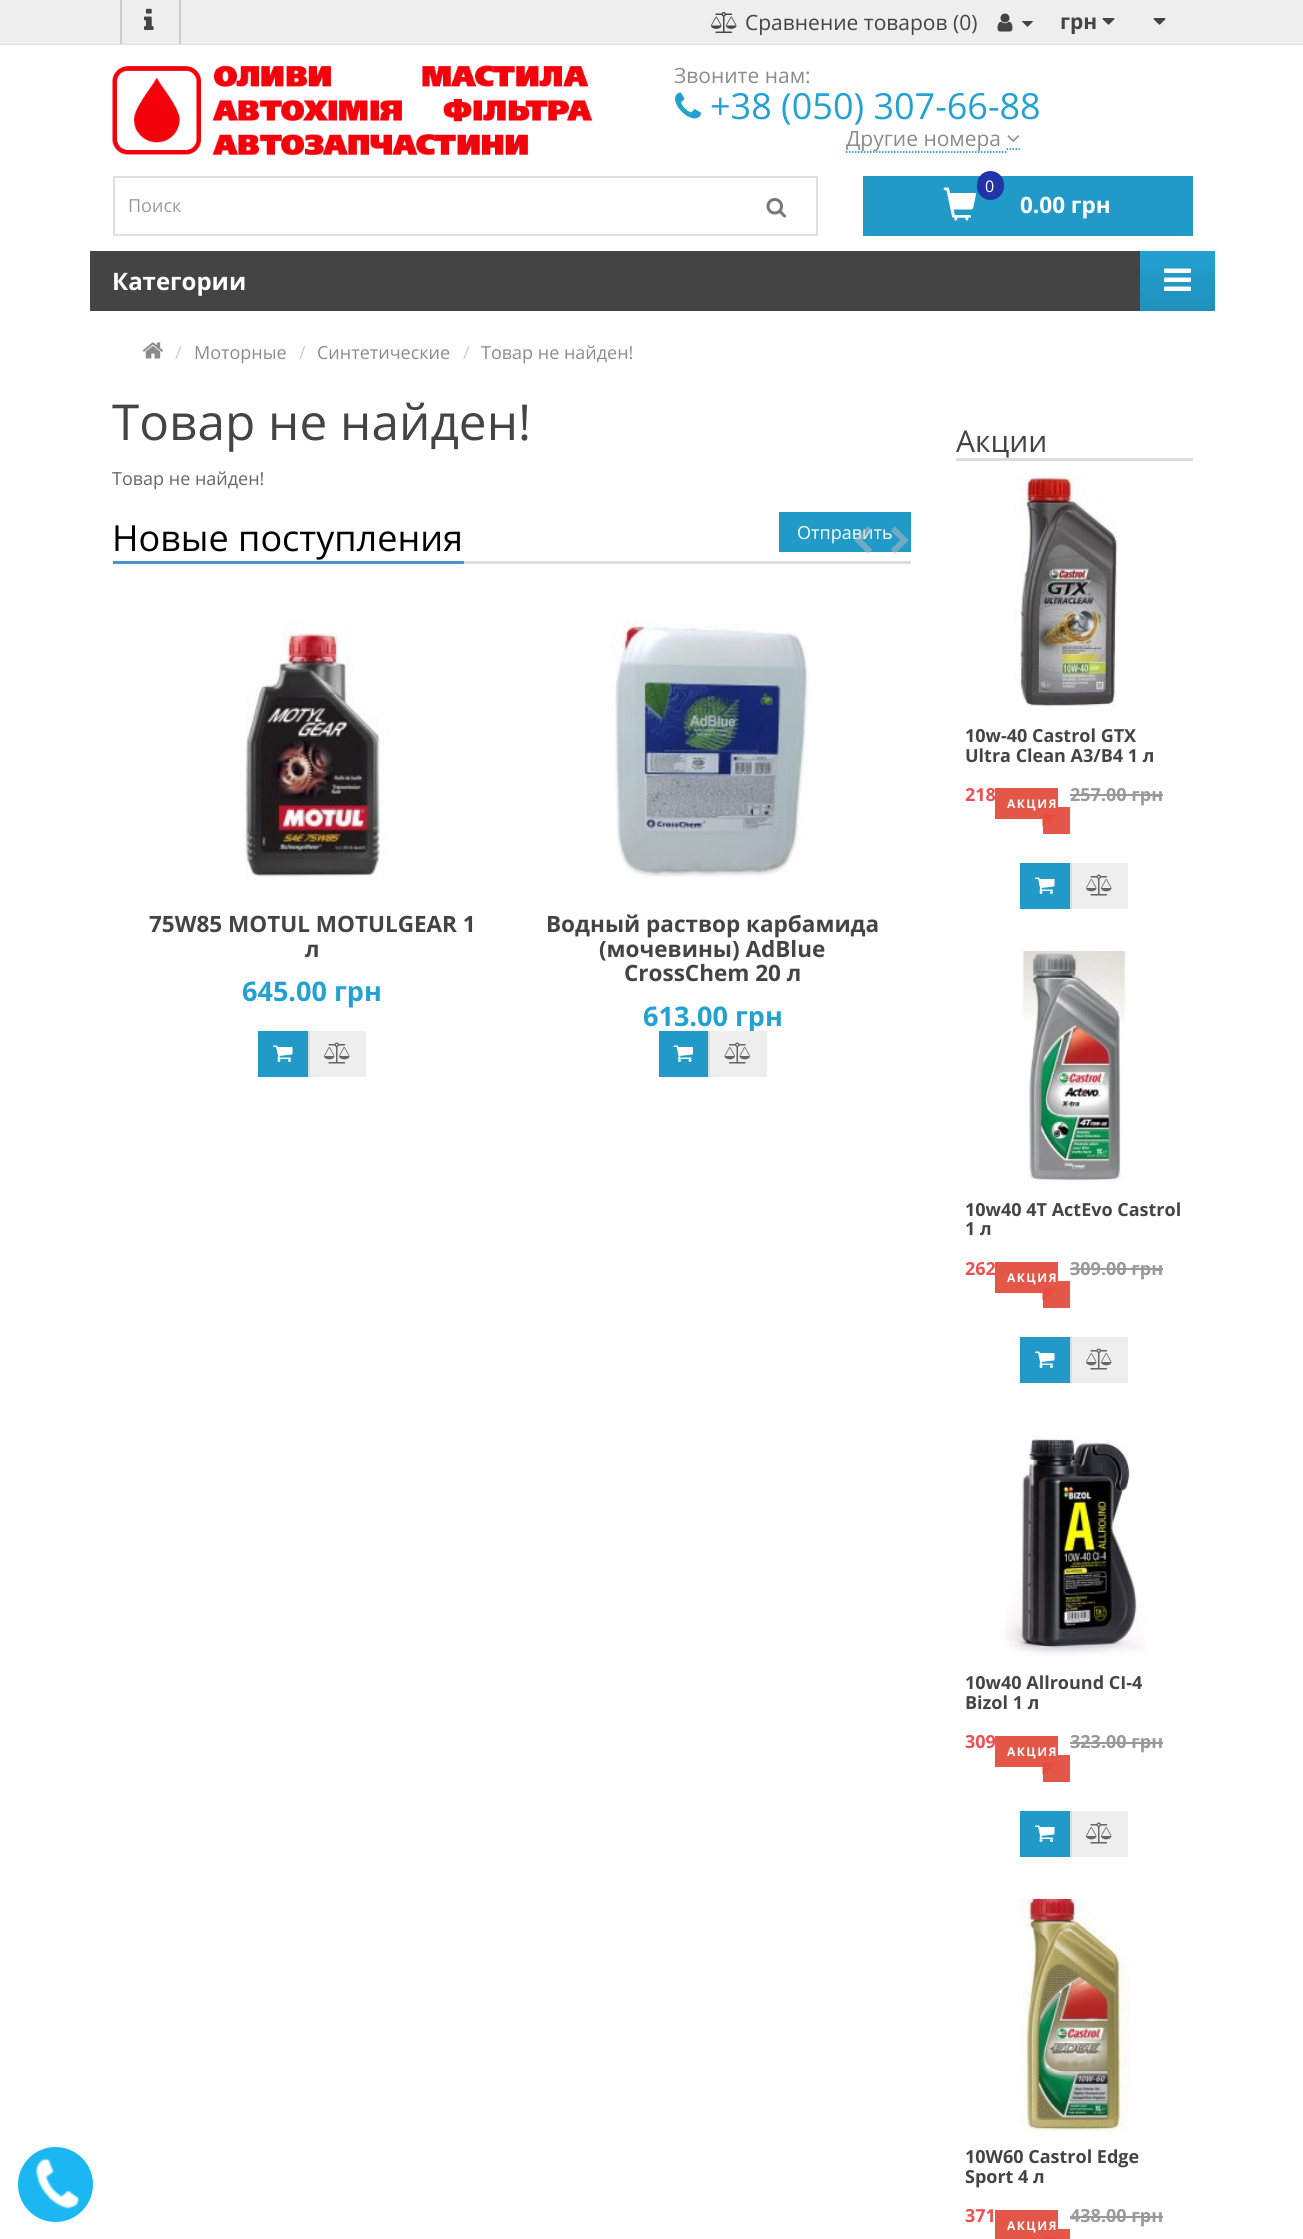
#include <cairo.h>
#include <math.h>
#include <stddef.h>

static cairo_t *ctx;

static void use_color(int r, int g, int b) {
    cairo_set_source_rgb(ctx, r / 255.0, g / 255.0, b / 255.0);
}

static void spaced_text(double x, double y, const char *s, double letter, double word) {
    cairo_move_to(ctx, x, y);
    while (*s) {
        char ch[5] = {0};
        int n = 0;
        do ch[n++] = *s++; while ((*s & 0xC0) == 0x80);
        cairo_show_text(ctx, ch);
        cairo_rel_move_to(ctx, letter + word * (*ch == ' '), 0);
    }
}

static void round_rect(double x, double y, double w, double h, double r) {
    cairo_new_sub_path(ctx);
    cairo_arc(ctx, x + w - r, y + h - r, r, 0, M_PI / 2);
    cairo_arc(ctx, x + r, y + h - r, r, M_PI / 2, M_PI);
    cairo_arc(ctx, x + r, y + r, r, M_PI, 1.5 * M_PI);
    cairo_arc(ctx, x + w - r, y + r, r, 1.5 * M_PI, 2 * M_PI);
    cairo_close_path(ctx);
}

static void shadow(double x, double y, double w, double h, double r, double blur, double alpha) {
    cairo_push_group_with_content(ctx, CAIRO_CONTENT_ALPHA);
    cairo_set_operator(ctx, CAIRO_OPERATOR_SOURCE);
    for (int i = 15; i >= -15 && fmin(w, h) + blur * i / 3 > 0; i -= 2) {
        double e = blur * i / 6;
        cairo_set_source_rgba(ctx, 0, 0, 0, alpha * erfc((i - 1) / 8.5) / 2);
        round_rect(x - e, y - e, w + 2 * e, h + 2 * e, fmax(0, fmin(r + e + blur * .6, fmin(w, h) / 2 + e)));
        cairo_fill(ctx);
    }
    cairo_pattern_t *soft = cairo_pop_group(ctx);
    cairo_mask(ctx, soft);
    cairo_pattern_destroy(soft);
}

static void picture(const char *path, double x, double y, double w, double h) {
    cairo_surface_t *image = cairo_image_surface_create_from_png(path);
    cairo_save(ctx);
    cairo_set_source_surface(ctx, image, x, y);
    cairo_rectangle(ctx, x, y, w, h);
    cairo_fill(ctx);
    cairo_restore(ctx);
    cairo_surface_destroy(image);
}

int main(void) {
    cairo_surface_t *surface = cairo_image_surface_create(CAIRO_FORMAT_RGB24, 1303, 2239);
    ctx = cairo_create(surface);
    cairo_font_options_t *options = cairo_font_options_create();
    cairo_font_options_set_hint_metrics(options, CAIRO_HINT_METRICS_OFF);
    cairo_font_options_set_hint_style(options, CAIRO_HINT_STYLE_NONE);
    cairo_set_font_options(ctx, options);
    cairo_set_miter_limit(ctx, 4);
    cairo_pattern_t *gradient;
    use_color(238, 238, 238);
    cairo_paint(ctx);
    use_color(226, 226, 226);
    cairo_rectangle(ctx, 0, 44, 1303, 1);
    cairo_fill(ctx);
    use_color(0, 0, 0);
    shadow(0, 47, 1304, 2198, 0, 2, 0.2);
    use_color(204, 204, 204);
    cairo_rectangle(ctx, 179, 0, 2, 44);
    cairo_fill(ctx);
    cairo_rectangle(ctx, 120, 0, 2, 44);
    cairo_fill(ctx);
    picture("img1.png", 144, 8, 10, 22);
    picture("img2.png", 711, 12, 26, 21);
    cairo_select_font_face(ctx, "Open Sans", CAIRO_FONT_SLANT_NORMAL, CAIRO_FONT_WEIGHT_NORMAL);
    cairo_set_font_size(ctx, 21);
    use_color(68, 68, 68);
    cairo_move_to(ctx, 745, 30);
    cairo_show_text(ctx, "Сравнение товаров (0)");
    picture("img3.png", 997, 13, 16, 19);
    cairo_new_path(ctx);
    cairo_move_to(ctx, 1021.5, 21);
    cairo_line_to(ctx, 1033.5, 21);
    cairo_line_to(ctx, 1027.5, 27);
    cairo_close_path(ctx);
    cairo_fill(ctx);
    cairo_select_font_face(ctx, "Open Sans", CAIRO_FONT_SLANT_NORMAL, CAIRO_FONT_WEIGHT_BOLD);
    cairo_move_to(ctx, 1060, 29);
    cairo_show_text(ctx, "грн");
    picture("img4.png", 1102, 18, 13, 7);
    picture("img4.png", 1153, 18, 13, 7);
    use_color(255, 255, 255);
    cairo_rectangle(ctx, 0, 45, 1303, 2194);
    cairo_fill(ctx);
    use_color(26, 183, 243);
    cairo_arc(ctx, 55.5, 2184.5, 37.5, 0, 2 * M_PI);
    cairo_fill(ctx);
    picture("img5.png", 35, 2158, 45, 51);
    picture("img6.png", 112, 65, 481, 91);
    cairo_select_font_face(ctx, "Open Sans", CAIRO_FONT_SLANT_NORMAL, CAIRO_FONT_WEIGHT_NORMAL);
    use_color(139, 139, 139);
    cairo_move_to(ctx, 674, 83);
    cairo_show_text(ctx, "Звоните нам:");
    picture("img7.png", 675, 92, 26, 27);
    cairo_set_font_size(ctx, 36);
    use_color(35, 161, 209);
    cairo_move_to(ctx, 710, 119);
    cairo_show_text(ctx, "+38 (050) 307-66-88");
    cairo_new_path(ctx);
    cairo_move_to(ctx, 846, 152);
    cairo_line_to(ctx, 1006.5, 152);
    use_color(0, 136, 206);
    cairo_set_line_width(ctx, 1.5);
    cairo_set_dash(ctx, (double[]){1.5, 1.5}, 2, 0);
    cairo_stroke(ctx);
    cairo_new_path(ctx);
    cairo_move_to(ctx, 1006.5, 149);
    cairo_line_to(ctx, 1020, 149);
    cairo_stroke(ctx);
    cairo_set_font_size(ctx, 21);
    use_color(139, 139, 139);
    cairo_move_to(ctx, 846, 146);
    cairo_show_text(ctx, "Другие номера");
    picture("img8.png", 1007, 135, 12, 7);
    use_color(223, 223, 223);
    cairo_rectangle(ctx, 113, 176, 705, 2);
    cairo_fill(ctx);
    cairo_rectangle(ctx, 816, 176, 2, 60);
    cairo_fill(ctx);
    cairo_rectangle(ctx, 113, 234, 705, 2);
    cairo_fill(ctx);
    picture("img9.png", 766, 198, 20, 20);
    cairo_rectangle(ctx, 113, 176, 2, 60);
    cairo_fill(ctx);
    cairo_set_font_size(ctx, 18);
    use_color(153, 153, 153);
    cairo_move_to(ctx, 128, 212);
    cairo_show_text(ctx, "Поиск");
    use_color(34, 154, 200);
    cairo_rectangle(ctx, 863, 176, 330, 60);
    cairo_fill(ctx);
    picture("img10.png", 943, 187, 33, 34);
    use_color(34, 51, 170);
    round_rect(977, 171, 27, 29, 13.5);
    cairo_fill(ctx);
    cairo_set_font_size(ctx, 16);
    use_color(255, 255, 255);
    cairo_move_to(ctx, 985, 192);
    cairo_show_text(ctx, "0");
    cairo_select_font_face(ctx, "Open Sans", CAIRO_FONT_SLANT_NORMAL, CAIRO_FONT_WEIGHT_BOLD);
    cairo_set_font_size(ctx, 22.5);
    cairo_move_to(ctx, 1020, 213);
    cairo_show_text(ctx, "0.00 грн");
    use_color(68, 68, 68);
    cairo_rectangle(ctx, 90, 251, 1050, 60);
    cairo_fill(ctx);
    cairo_set_font_size(ctx, 24);
    use_color(255, 255, 255);
    cairo_move_to(ctx, 112, 290);
    cairo_show_text(ctx, "Категории");
    gradient = cairo_pattern_create_linear(1178, 251, 1178, 311);
    cairo_pattern_add_color_stop_rgba(gradient, 0, 0.137, 0.631, 0.82, 1);
    cairo_pattern_add_color_stop_rgba(gradient, 1, 0.122, 0.565, 0.733, 1);
    cairo_set_source(ctx, gradient);
    cairo_pattern_destroy(gradient);
    cairo_rectangle(ctx, 1140, 251, 75, 60);
    cairo_fill(ctx);
    picture("img11.png", 1164, 268, 27, 23);
    picture("img12.png", 142, 342, 21, 17);
    cairo_select_font_face(ctx, "Open Sans", CAIRO_FONT_SLANT_NORMAL, CAIRO_FONT_WEIGHT_NORMAL);
    cairo_set_font_size(ctx, 18);
    use_color(204, 204, 204);
    cairo_move_to(ctx, 175, 359);
    cairo_show_text(ctx, "/");
    use_color(139, 139, 139);
    cairo_move_to(ctx, 194, 359);
    cairo_show_text(ctx, "Моторные");
    use_color(204, 204, 204);
    cairo_move_to(ctx, 299, 359);
    cairo_show_text(ctx, "/");
    use_color(139, 139, 139);
    cairo_move_to(ctx, 317, 359);
    cairo_show_text(ctx, "Синтетические");
    use_color(204, 204, 204);
    cairo_move_to(ctx, 463, 359);
    cairo_show_text(ctx, "/");
    use_color(139, 139, 139);
    cairo_move_to(ctx, 481, 359);
    cairo_show_text(ctx, "Товар не найден!");
    cairo_set_font_size(ctx, 49.5);
    use_color(68, 68, 68);
    cairo_move_to(ctx, 112, 440);
    cairo_show_text(ctx, "Товар не найден!");
    cairo_set_font_size(ctx, 18);
    use_color(102, 102, 102);
    cairo_move_to(ctx, 112, 485);
    cairo_show_text(ctx, "Товар не найден!");
    use_color(221, 221, 221);
    cairo_rectangle(ctx, 464, 561, 447, 3);
    cairo_fill(ctx);
    cairo_set_font_size(ctx, 36);
    use_color(0, 0, 0);
    cairo_move_to(ctx, 112, 551);
    cairo_show_text(ctx, "Новые поступления");
    use_color(72, 148, 204);
    cairo_rectangle(ctx, 113, 561, 351, 3);
    cairo_fill(ctx);
    use_color(34, 154, 200);
    cairo_rectangle(ctx, 779, 512, 132, 40);
    cairo_fill(ctx);
    cairo_set_font_size(ctx, 18);
    use_color(255, 255, 255);
    cairo_move_to(ctx, 797, 539);
    cairo_show_text(ctx, "Отправить");
    picture("img13.png", 854, 526, 18, 28);
    picture("img14.png", 891, 526, 18, 28);
    picture("img15.png", 245, 619, 143, 263);
    cairo_select_font_face(ctx, "Open Sans", CAIRO_FONT_SLANT_NORMAL, CAIRO_FONT_WEIGHT_BOLD);
    cairo_set_font_size(ctx, 22.5);
    use_color(68, 68, 68);
    cairo_move_to(ctx, 149, 932);
    cairo_show_text(ctx, "75W85 MOTUL MOTULGEAR 1");
    cairo_move_to(ctx, 305, 957);
    cairo_show_text(ctx, "л");
    cairo_set_font_size(ctx, 27);
    use_color(35, 161, 209);
    cairo_move_to(ctx, 242, 1001);
    cairo_show_text(ctx, "645.00 грн");
    use_color(34, 154, 200);
    cairo_rectangle(ctx, 258, 1031, 50, 46);
    cairo_fill(ctx);
    picture("img16.png", 273, 1045, 20, 17);
    use_color(238, 238, 238);
    cairo_rectangle(ctx, 310, 1031, 56, 46);
    cairo_fill(ctx);
    use_color(221, 221, 221);
    cairo_rectangle(ctx, 308, 1031, 2, 46);
    cairo_fill(ctx);
    picture("img17.png", 324, 1042, 26, 22);
    picture("img18.png", 610, 619, 199, 258);
    cairo_set_font_size(ctx, 22.5);
    use_color(68, 68, 68);
    cairo_move_to(ctx, 546, 932);
    cairo_show_text(ctx, "Водный раствор карбамида");
    cairo_move_to(ctx, 599, 957);
    cairo_show_text(ctx, "(мочевины) AdBlue");
    cairo_move_to(ctx, 624, 981);
    cairo_show_text(ctx, "CrossChem 20 л");
    cairo_set_font_size(ctx, 27);
    use_color(35, 161, 209);
    cairo_move_to(ctx, 643, 1026);
    cairo_show_text(ctx, "613.00 грн");
    use_color(34, 154, 200);
    cairo_rectangle(ctx, 659, 1031, 49, 46);
    cairo_fill(ctx);
    picture("img19.png", 673, 1045, 20, 17);
    use_color(238, 238, 238);
    cairo_rectangle(ctx, 710, 1031, 57, 46);
    cairo_fill(ctx);
    use_color(221, 221, 221);
    cairo_rectangle(ctx, 708, 1031, 2, 46);
    cairo_fill(ctx);
    picture("img20.png", 724, 1042, 26, 22);
    cairo_rectangle(ctx, 956, 458, 237, 3);
    cairo_fill(ctx);
    cairo_select_font_face(ctx, "Open Sans", CAIRO_FONT_SLANT_NORMAL, CAIRO_FONT_WEIGHT_NORMAL);
    cairo_set_font_size(ctx, 30);
    use_color(68, 68, 68);
    cairo_move_to(ctx, 956, 452);
    cairo_show_text(ctx, "Акции");
    picture("img21.png", 1013, 477, 105, 234);
    cairo_select_font_face(ctx, "Open Sans", CAIRO_FONT_SLANT_NORMAL, CAIRO_FONT_WEIGHT_BOLD);
    cairo_set_font_size(ctx, 18);
    cairo_move_to(ctx, 965, 742);
    cairo_show_text(ctx, "10w-40 Castrol GTX");
    cairo_move_to(ctx, 965, 762);
    cairo_show_text(ctx, "Ultra Clean A3/B4 1 л");
    use_color(237, 80, 83);
    cairo_move_to(ctx, 965, 801);
    cairo_show_text(ctx, "218");
    use_color(228, 86, 72);
    cairo_rectangle(ctx, 995, 788, 63, 31);
    cairo_fill(ctx);
    cairo_rectangle(ctx, 1043, 807, 27, 27);
    cairo_fill(ctx);
    cairo_set_font_size(ctx, 12);
    use_color(255, 255, 255);
    spaced_text(1007, 808, "АКЦИЯ", 1.5, 0);
    use_color(231, 76, 60);
    cairo_new_path(ctx);
    cairo_move_to(ctx, 1042.5, 814.5);
    cairo_line_to(ctx, 1057.5, 814.5);
    cairo_line_to(ctx, 1042.5, 826.5);
    cairo_close_path(ctx);
    cairo_fill(ctx);
    cairo_set_font_size(ctx, 18);
    use_color(153, 153, 153);
    cairo_move_to(ctx, 1070, 801);
    cairo_show_text(ctx, "257.00 грн");
    cairo_rectangle(ctx, 1070, 794, 93, 2);
    cairo_fill(ctx);
    use_color(34, 154, 200);
    cairo_rectangle(ctx, 1020, 863, 50, 46);
    cairo_fill(ctx);
    picture("img16.png", 1035, 877, 20, 17);
    use_color(238, 238, 238);
    cairo_rectangle(ctx, 1072, 863, 56, 46);
    cairo_fill(ctx);
    use_color(221, 221, 221);
    cairo_rectangle(ctx, 1070, 863, 2, 46);
    cairo_fill(ctx);
    picture("img17.png", 1086, 874, 26, 22);
    picture("img22.png", 1022, 951, 104, 231);
    use_color(68, 68, 68);
    cairo_move_to(ctx, 965, 1216);
    cairo_show_text(ctx, "10w40 4T ActEvo Castrol");
    cairo_move_to(ctx, 965, 1235);
    cairo_show_text(ctx, "1 л");
    use_color(237, 80, 83);
    cairo_move_to(ctx, 965, 1275);
    cairo_show_text(ctx, "262");
    use_color(228, 86, 72);
    cairo_rectangle(ctx, 995, 1262, 63, 31);
    cairo_fill(ctx);
    cairo_rectangle(ctx, 1043, 1281, 27, 27);
    cairo_fill(ctx);
    cairo_set_font_size(ctx, 12);
    use_color(255, 255, 255);
    spaced_text(1007, 1282, "АКЦИЯ", 1.5, 0);
    use_color(231, 76, 60);
    cairo_new_path(ctx);
    cairo_move_to(ctx, 1042.5, 1288.5);
    cairo_line_to(ctx, 1057.5, 1288.5);
    cairo_line_to(ctx, 1042.5, 1300.5);
    cairo_close_path(ctx);
    cairo_fill(ctx);
    cairo_set_font_size(ctx, 18);
    use_color(153, 153, 153);
    cairo_move_to(ctx, 1070, 1275);
    cairo_show_text(ctx, "309.00 грн");
    cairo_rectangle(ctx, 1070, 1268, 93, 2);
    cairo_fill(ctx);
    use_color(34, 154, 200);
    cairo_rectangle(ctx, 1020, 1337, 50, 46);
    cairo_fill(ctx);
    picture("img16.png", 1035, 1351, 20, 17);
    use_color(238, 238, 238);
    cairo_rectangle(ctx, 1072, 1337, 56, 46);
    cairo_fill(ctx);
    use_color(221, 221, 221);
    cairo_rectangle(ctx, 1070, 1337, 2, 46);
    cairo_fill(ctx);
    picture("img17.png", 1086, 1348, 26, 22);
    picture("img23.png", 1004, 1434, 141, 222);
    use_color(68, 68, 68);
    cairo_move_to(ctx, 965, 1689);
    cairo_show_text(ctx, "10w40 Allround CI-4");
    cairo_move_to(ctx, 965, 1709);
    cairo_show_text(ctx, "Bizol 1 л");
    use_color(237, 80, 83);
    cairo_move_to(ctx, 965, 1748);
    cairo_show_text(ctx, "309");
    use_color(228, 86, 72);
    cairo_rectangle(ctx, 995, 1736, 63, 31);
    cairo_fill(ctx);
    cairo_rectangle(ctx, 1043, 1755, 27, 27);
    cairo_fill(ctx);
    cairo_set_font_size(ctx, 12);
    use_color(255, 255, 255);
    spaced_text(1007, 1756, "АКЦИЯ", 1.5, 0);
    use_color(231, 76, 60);
    cairo_new_path(ctx);
    cairo_move_to(ctx, 1042.5, 1762.5);
    cairo_line_to(ctx, 1057.5, 1762.5);
    cairo_line_to(ctx, 1042.5, 1774.5);
    cairo_close_path(ctx);
    cairo_fill(ctx);
    cairo_set_font_size(ctx, 18);
    use_color(153, 153, 153);
    cairo_move_to(ctx, 1070, 1748);
    cairo_show_text(ctx, "323.00 грн");
    cairo_rectangle(ctx, 1070, 1742, 93, 2);
    cairo_fill(ctx);
    use_color(34, 154, 200);
    cairo_rectangle(ctx, 1020, 1811, 50, 46);
    cairo_fill(ctx);
    picture("img16.png", 1035, 1825, 20, 17);
    use_color(238, 238, 238);
    cairo_rectangle(ctx, 1072, 1811, 56, 46);
    cairo_fill(ctx);
    use_color(221, 221, 221);
    cairo_rectangle(ctx, 1070, 1811, 2, 46);
    cairo_fill(ctx);
    picture("img17.png", 1086, 1822, 26, 22);
    picture("img24.png", 1013, 1899, 117, 233);
    use_color(68, 68, 68);
    cairo_move_to(ctx, 965, 2163);
    cairo_show_text(ctx, "10W60 Castrol Edge");
    cairo_move_to(ctx, 965, 2183);
    cairo_show_text(ctx, "Sport 4 л");
    use_color(237, 80, 83);
    cairo_move_to(ctx, 965, 2222);
    cairo_show_text(ctx, "371");
    use_color(228, 86, 72);
    cairo_rectangle(ctx, 995, 2210, 63, 29);
    cairo_fill(ctx);
    cairo_rectangle(ctx, 1058, 2229, 12, 10);
    cairo_fill(ctx);
    cairo_set_font_size(ctx, 12);
    use_color(255, 255, 255);
    spaced_text(1007, 2230, "АКЦИЯ", 1.5, 0);
    use_color(231, 76, 60);
    cairo_new_path(ctx);
    cairo_move_to(ctx, 1042.5, 2236.5);
    cairo_line_to(ctx, 1057.5, 2236.5);
    cairo_line_to(ctx, 1042.5, 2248.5);
    cairo_close_path(ctx);
    cairo_fill(ctx);
    cairo_set_font_size(ctx, 18);
    use_color(153, 153, 153);
    cairo_move_to(ctx, 1070, 2222);
    cairo_show_text(ctx, "438.00 грн");
    cairo_rectangle(ctx, 1070, 2216, 93, 2);
    cairo_fill(ctx);
    cairo_surface_write_to_png(surface, "result.png");
    cairo_font_options_destroy(options);
    cairo_destroy(ctx);
    cairo_surface_destroy(surface);
    return 0;
}
